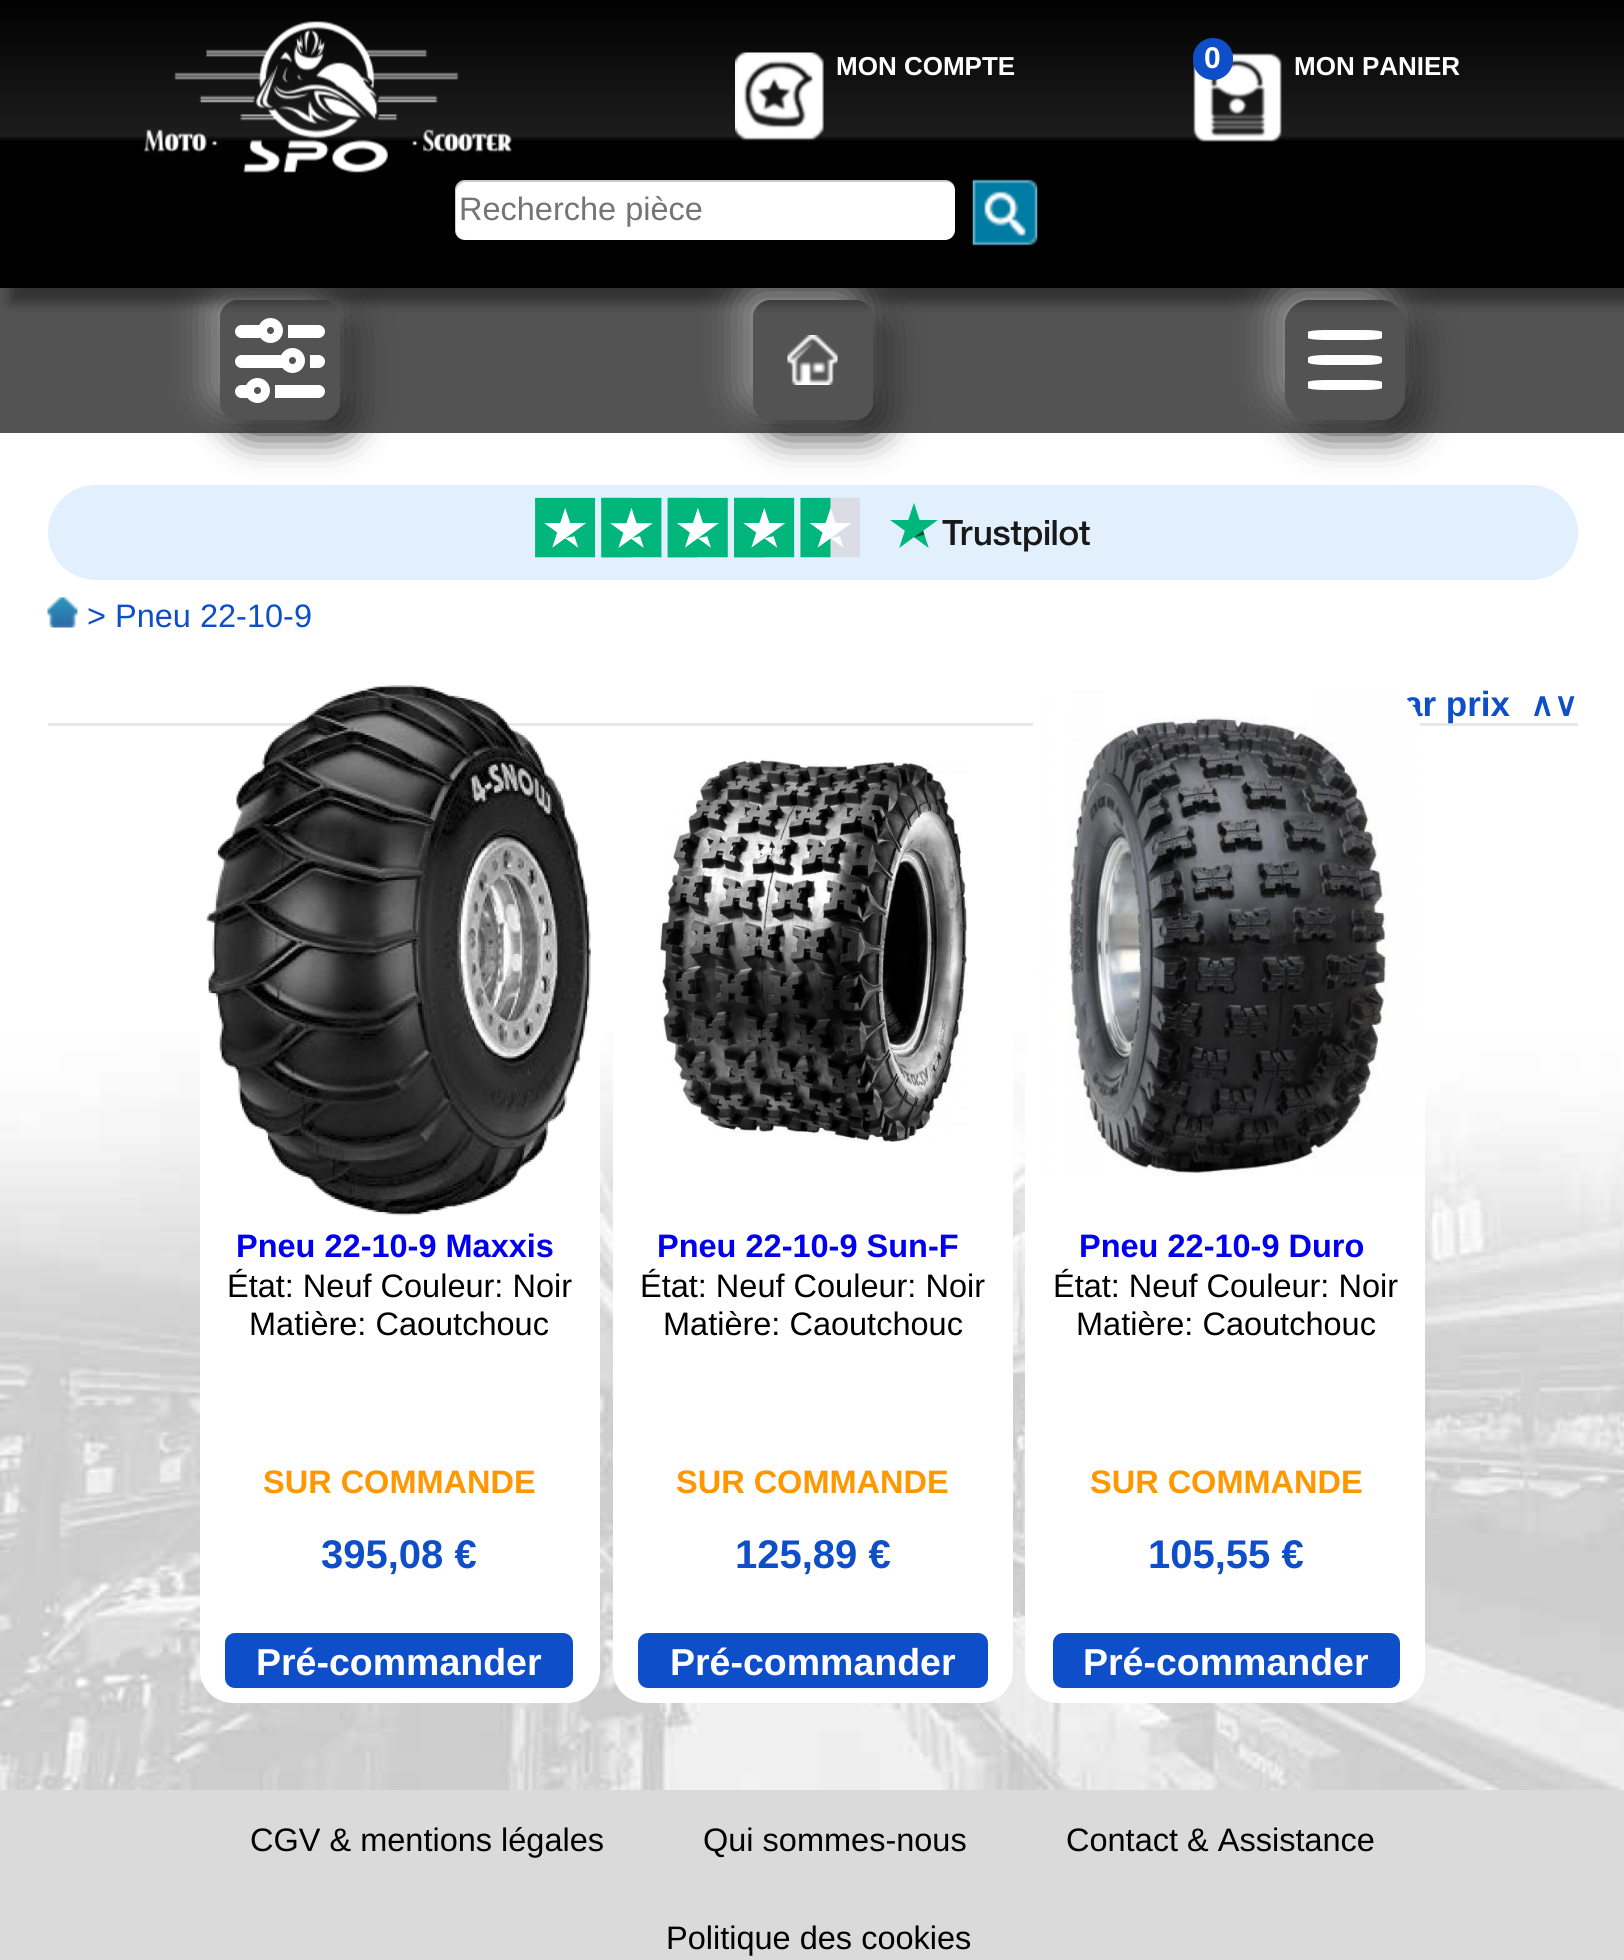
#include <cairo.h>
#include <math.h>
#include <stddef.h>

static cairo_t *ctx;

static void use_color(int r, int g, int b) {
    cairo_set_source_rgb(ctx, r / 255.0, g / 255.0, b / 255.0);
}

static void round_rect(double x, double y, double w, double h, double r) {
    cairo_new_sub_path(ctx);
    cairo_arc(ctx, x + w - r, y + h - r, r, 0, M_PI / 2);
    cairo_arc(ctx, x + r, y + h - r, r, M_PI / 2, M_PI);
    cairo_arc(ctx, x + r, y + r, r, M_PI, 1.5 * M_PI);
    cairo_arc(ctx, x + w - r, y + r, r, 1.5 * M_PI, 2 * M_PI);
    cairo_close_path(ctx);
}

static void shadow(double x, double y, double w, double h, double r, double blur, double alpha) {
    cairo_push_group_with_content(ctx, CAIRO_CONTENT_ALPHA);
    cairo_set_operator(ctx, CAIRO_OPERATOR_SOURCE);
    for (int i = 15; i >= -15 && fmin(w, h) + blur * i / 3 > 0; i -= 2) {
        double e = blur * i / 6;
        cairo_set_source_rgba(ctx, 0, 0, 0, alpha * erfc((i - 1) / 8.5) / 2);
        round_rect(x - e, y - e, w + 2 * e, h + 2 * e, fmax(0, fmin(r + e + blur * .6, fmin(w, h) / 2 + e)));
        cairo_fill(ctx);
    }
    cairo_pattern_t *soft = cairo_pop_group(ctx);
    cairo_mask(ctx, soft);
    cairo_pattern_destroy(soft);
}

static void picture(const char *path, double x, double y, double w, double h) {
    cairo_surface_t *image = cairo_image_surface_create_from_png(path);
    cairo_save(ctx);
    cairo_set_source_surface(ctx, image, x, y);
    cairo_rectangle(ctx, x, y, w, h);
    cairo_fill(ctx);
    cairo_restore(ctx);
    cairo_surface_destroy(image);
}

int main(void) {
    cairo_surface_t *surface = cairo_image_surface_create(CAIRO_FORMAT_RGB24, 1624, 1960);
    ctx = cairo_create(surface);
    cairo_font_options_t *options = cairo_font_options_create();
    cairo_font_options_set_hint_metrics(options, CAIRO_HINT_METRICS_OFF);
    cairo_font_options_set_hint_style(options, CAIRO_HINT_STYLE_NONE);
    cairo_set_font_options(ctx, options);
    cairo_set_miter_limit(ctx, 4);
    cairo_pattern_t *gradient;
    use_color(255, 255, 255);
    cairo_paint(ctx);
    use_color(83, 83, 83);
    cairo_rectangle(ctx, 0, 288, 1624, 145);
    cairo_fill(ctx);
    cairo_save(ctx);
    cairo_set_fill_rule(ctx, CAIRO_FILL_RULE_EVEN_ODD);
    cairo_new_path(ctx);
    cairo_move_to(ctx, 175, 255);
    cairo_line_to(ctx, 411, 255);
    cairo_line_to(ctx, 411, 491);
    cairo_line_to(ctx, 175, 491);
    cairo_close_path(ctx);
    cairo_move_to(ctx, 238, 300);
    cairo_line_to(ctx, 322, 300);
    cairo_curve_to(ctx, 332, 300, 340, 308, 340, 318);
    cairo_line_to(ctx, 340, 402);
    cairo_curve_to(ctx, 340, 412, 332, 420, 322, 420);
    cairo_line_to(ctx, 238, 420);
    cairo_curve_to(ctx, 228, 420, 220, 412, 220, 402);
    cairo_line_to(ctx, 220, 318);
    cairo_curve_to(ctx, 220, 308, 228, 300, 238, 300);
    cairo_close_path(ctx);
    cairo_clip(ctx);
    use_color(34, 34, 34);
    shadow(233, 313, 120, 120, 18, 19, 1);
    cairo_restore(ctx);
    cairo_save(ctx);
    cairo_set_fill_rule(ctx, CAIRO_FILL_RULE_EVEN_ODD);
    cairo_new_path(ctx);
    cairo_move_to(ctx, 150, 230);
    cairo_line_to(ctx, 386, 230);
    cairo_line_to(ctx, 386, 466);
    cairo_line_to(ctx, 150, 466);
    cairo_close_path(ctx);
    cairo_move_to(ctx, 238, 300);
    cairo_line_to(ctx, 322, 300);
    cairo_curve_to(ctx, 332, 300, 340, 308, 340, 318);
    cairo_line_to(ctx, 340, 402);
    cairo_curve_to(ctx, 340, 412, 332, 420, 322, 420);
    cairo_line_to(ctx, 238, 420);
    cairo_curve_to(ctx, 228, 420, 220, 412, 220, 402);
    cairo_line_to(ctx, 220, 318);
    cairo_curve_to(ctx, 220, 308, 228, 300, 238, 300);
    cairo_close_path(ctx);
    cairo_clip(ctx);
    use_color(148, 148, 148);
    shadow(208, 288, 120, 120, 18, 19, 1);
    cairo_restore(ctx);
    use_color(255, 255, 255);
    cairo_new_path(ctx);
    cairo_move_to(ctx, 241.5, 325);
    cairo_line_to(ctx, 260, 325);
    cairo_line_to(ctx, 260, 338);
    cairo_line_to(ctx, 241.5, 338);
    cairo_curve_to(ctx, 238, 338, 235, 335, 235, 331.5);
    cairo_curve_to(ctx, 235, 328, 238, 325, 241.5, 325);
    cairo_close_path(ctx);
    cairo_fill(ctx);
    use_color(83, 83, 83);
    cairo_arc(ctx, 270.5, 330.5, 8, 0, 2 * M_PI);
    cairo_fill_preserve(ctx);
    use_color(255, 255, 255);
    cairo_set_line_width(ctx, 9);
    cairo_stroke(ctx);
    use_color(0, 0, 0);
    shadow(10, 15, 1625, 288, 0, 6, 0.4);
    cairo_save(ctx);
    cairo_set_fill_rule(ctx, CAIRO_FILL_RULE_EVEN_ODD);
    cairo_new_path(ctx);
    cairo_move_to(ctx, 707, 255);
    cairo_line_to(ctx, 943, 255);
    cairo_line_to(ctx, 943, 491);
    cairo_line_to(ctx, 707, 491);
    cairo_close_path(ctx);
    cairo_move_to(ctx, 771, 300);
    cairo_line_to(ctx, 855, 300);
    cairo_curve_to(ctx, 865, 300, 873, 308, 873, 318);
    cairo_line_to(ctx, 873, 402);
    cairo_curve_to(ctx, 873, 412, 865, 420, 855, 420);
    cairo_line_to(ctx, 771, 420);
    cairo_curve_to(ctx, 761, 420, 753, 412, 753, 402);
    cairo_line_to(ctx, 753, 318);
    cairo_curve_to(ctx, 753, 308, 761, 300, 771, 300);
    cairo_close_path(ctx);
    cairo_clip(ctx);
    use_color(34, 34, 34);
    shadow(765, 313, 120, 120, 18, 19, 1);
    cairo_restore(ctx);
    cairo_save(ctx);
    cairo_set_fill_rule(ctx, CAIRO_FILL_RULE_EVEN_ODD);
    cairo_new_path(ctx);
    cairo_move_to(ctx, 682, 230);
    cairo_line_to(ctx, 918, 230);
    cairo_line_to(ctx, 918, 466);
    cairo_line_to(ctx, 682, 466);
    cairo_close_path(ctx);
    cairo_move_to(ctx, 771, 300);
    cairo_line_to(ctx, 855, 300);
    cairo_curve_to(ctx, 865, 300, 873, 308, 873, 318);
    cairo_line_to(ctx, 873, 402);
    cairo_curve_to(ctx, 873, 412, 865, 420, 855, 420);
    cairo_line_to(ctx, 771, 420);
    cairo_curve_to(ctx, 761, 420, 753, 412, 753, 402);
    cairo_line_to(ctx, 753, 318);
    cairo_curve_to(ctx, 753, 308, 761, 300, 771, 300);
    cairo_close_path(ctx);
    cairo_clip(ctx);
    use_color(148, 148, 148);
    shadow(740, 288, 120, 120, 18, 19, 1);
    cairo_restore(ctx);
    cairo_save(ctx);
    cairo_set_fill_rule(ctx, CAIRO_FILL_RULE_EVEN_ODD);
    cairo_new_path(ctx);
    cairo_move_to(ctx, 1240, 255);
    cairo_line_to(ctx, 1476, 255);
    cairo_line_to(ctx, 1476, 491);
    cairo_line_to(ctx, 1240, 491);
    cairo_close_path(ctx);
    cairo_move_to(ctx, 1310, 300);
    cairo_line_to(ctx, 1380, 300);
    cairo_curve_to(ctx, 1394, 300, 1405, 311, 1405, 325);
    cairo_line_to(ctx, 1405, 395);
    cairo_curve_to(ctx, 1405, 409, 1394, 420, 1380, 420);
    cairo_line_to(ctx, 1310, 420);
    cairo_curve_to(ctx, 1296, 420, 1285, 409, 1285, 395);
    cairo_line_to(ctx, 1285, 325);
    cairo_curve_to(ctx, 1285, 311, 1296, 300, 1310, 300);
    cairo_close_path(ctx);
    cairo_clip(ctx);
    use_color(34, 34, 34);
    shadow(1298, 313, 120, 120, 25, 19, 1);
    cairo_restore(ctx);
    cairo_save(ctx);
    cairo_set_fill_rule(ctx, CAIRO_FILL_RULE_EVEN_ODD);
    cairo_new_path(ctx);
    cairo_move_to(ctx, 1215, 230);
    cairo_line_to(ctx, 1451, 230);
    cairo_line_to(ctx, 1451, 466);
    cairo_line_to(ctx, 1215, 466);
    cairo_close_path(ctx);
    cairo_move_to(ctx, 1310, 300);
    cairo_line_to(ctx, 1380, 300);
    cairo_curve_to(ctx, 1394, 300, 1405, 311, 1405, 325);
    cairo_line_to(ctx, 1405, 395);
    cairo_curve_to(ctx, 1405, 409, 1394, 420, 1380, 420);
    cairo_line_to(ctx, 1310, 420);
    cairo_curve_to(ctx, 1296, 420, 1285, 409, 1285, 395);
    cairo_line_to(ctx, 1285, 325);
    cairo_curve_to(ctx, 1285, 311, 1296, 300, 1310, 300);
    cairo_close_path(ctx);
    cairo_clip(ctx);
    use_color(148, 148, 148);
    shadow(1273, 288, 120, 120, 25, 19, 1);
    cairo_restore(ctx);
    gradient = cairo_pattern_create_linear(813, 0, 813, 288);
    cairo_pattern_add_color_stop_rgba(gradient, 0, 0.004, 0.004, 0.004, 1);
    cairo_pattern_add_color_stop_rgba(gradient, 0.47, 0.114, 0.114, 0.114, 1);
    cairo_pattern_add_color_stop_rgba(gradient, 0.49, 0.004, 0.004, 0.004, 1);
    cairo_set_source(ctx, gradient);
    cairo_pattern_destroy(gradient);
    cairo_rectangle(ctx, 0, 0, 1624, 288);
    cairo_fill(ctx);
    picture("img1.png", 143, 21, 369, 152);
    picture("img2.png", 735, 52, 89, 89);
    cairo_select_font_face(ctx, "Liberation Sans", CAIRO_FONT_SLANT_NORMAL, CAIRO_FONT_WEIGHT_BOLD);
    cairo_set_font_size(ctx, 26);
    use_color(255, 255, 255);
    cairo_move_to(ctx, 836, 75);
    cairo_show_text(ctx, "MON COMPTE");
    picture("img3.png", 1193, 53, 89, 89);
    use_color(14, 79, 201);
    round_rect(1193, 38, 40, 42, 20);
    cairo_fill(ctx);
    cairo_set_font_size(ctx, 30);
    use_color(255, 255, 255);
    cairo_move_to(ctx, 1204, 68);
    cairo_show_text(ctx, "0");
    cairo_set_font_size(ctx, 26);
    cairo_move_to(ctx, 1294, 75);
    cairo_show_text(ctx, "MON PANIER");
    round_rect(455, 180, 500, 60, 10);
    cairo_fill(ctx);
    cairo_set_source_rgba(ctx, 0, 0, 0, 0.2);
    cairo_new_path(ctx);
    cairo_move_to(ctx, 466, 182);
    cairo_line_to(ctx, 946, 182);
    cairo_curve_to(ctx, 950, 182, 953, 184, 954, 187);
    cairo_curve_to(ctx, 953, 183, 949, 180, 945, 180);
    cairo_line_to(ctx, 465, 180);
    cairo_curve_to(ctx, 459, 180, 455, 184, 455, 190);
    cairo_line_to(ctx, 455, 230);
    cairo_curve_to(ctx, 455, 232, 456, 234, 457, 235);
    cairo_line_to(ctx, 456, 232);
    cairo_line_to(ctx, 456, 192);
    cairo_curve_to(ctx, 456, 187, 461, 182, 466, 182);
    cairo_close_path(ctx);
    cairo_fill(ctx);
    cairo_select_font_face(ctx, "Liberation Sans", CAIRO_FONT_SLANT_NORMAL, CAIRO_FONT_WEIGHT_NORMAL);
    cairo_set_font_size(ctx, 32.5);
    use_color(117, 117, 117);
    cairo_move_to(ctx, 459, 220);
    cairo_show_text(ctx, "Recherche pièce");
    picture("img4.png", 972, 179, 66, 67);
    use_color(255, 255, 255);
    cairo_new_path(ctx);
    cairo_move_to(ctx, 288, 325);
    cairo_line_to(ctx, 318.5, 325);
    cairo_curve_to(ctx, 322, 325, 325, 328, 325, 331.5);
    cairo_curve_to(ctx, 325, 335, 322, 338, 318.5, 338);
    cairo_line_to(ctx, 288, 338);
    cairo_close_path(ctx);
    cairo_fill(ctx);
    cairo_new_path(ctx);
    cairo_move_to(ctx, 241.5, 355);
    cairo_line_to(ctx, 283, 355);
    cairo_line_to(ctx, 283, 368);
    cairo_line_to(ctx, 241.5, 368);
    cairo_curve_to(ctx, 238, 368, 235, 365, 235, 361.5);
    cairo_curve_to(ctx, 235, 358, 238, 355, 241.5, 355);
    cairo_close_path(ctx);
    cairo_fill(ctx);
    use_color(83, 83, 83);
    cairo_arc(ctx, 292.5, 360.5, 8, 0, 2 * M_PI);
    cairo_fill_preserve(ctx);
    use_color(255, 255, 255);
    cairo_stroke(ctx);
    cairo_new_path(ctx);
    cairo_move_to(ctx, 310, 355);
    cairo_line_to(ctx, 318.5, 355);
    cairo_curve_to(ctx, 322, 355, 325, 358, 325, 361.5);
    cairo_curve_to(ctx, 325, 365, 322, 368, 318.5, 368);
    cairo_line_to(ctx, 310, 368);
    cairo_close_path(ctx);
    cairo_fill(ctx);
    cairo_new_path(ctx);
    cairo_move_to(ctx, 241.5, 385);
    cairo_line_to(ctx, 248, 385);
    cairo_line_to(ctx, 248, 398);
    cairo_line_to(ctx, 241.5, 398);
    cairo_curve_to(ctx, 238, 398, 235, 395, 235, 391.5);
    cairo_curve_to(ctx, 235, 388, 238, 385, 241.5, 385);
    cairo_close_path(ctx);
    cairo_fill(ctx);
    use_color(83, 83, 83);
    cairo_arc(ctx, 257.5, 390.5, 8, 0, 2 * M_PI);
    cairo_fill_preserve(ctx);
    use_color(255, 255, 255);
    cairo_stroke(ctx);
    cairo_new_path(ctx);
    cairo_move_to(ctx, 275, 385);
    cairo_line_to(ctx, 318.5, 385);
    cairo_curve_to(ctx, 322, 385, 325, 388, 325, 391.5);
    cairo_curve_to(ctx, 325, 395, 322, 398, 318.5, 398);
    cairo_line_to(ctx, 275, 398);
    cairo_close_path(ctx);
    cairo_fill(ctx);
    picture("img5.png", 787, 335, 51, 50);
    cairo_new_path(ctx);
    cairo_move_to(ctx, 1326, 330);
    cairo_line_to(ctx, 1364, 330);
    cairo_curve_to(ctx, 1374, 330, 1382, 331, 1382, 332);
    cairo_line_to(ctx, 1382, 338);
    cairo_curve_to(ctx, 1382, 339, 1374, 340, 1364, 340);
    cairo_line_to(ctx, 1326, 340);
    cairo_curve_to(ctx, 1316, 340, 1308, 339, 1308, 338);
    cairo_line_to(ctx, 1308, 332);
    cairo_curve_to(ctx, 1308, 331, 1316, 330, 1326, 330);
    cairo_close_path(ctx);
    cairo_fill(ctx);
    cairo_new_path(ctx);
    cairo_move_to(ctx, 1326, 355);
    cairo_line_to(ctx, 1364, 355);
    cairo_curve_to(ctx, 1374, 355, 1382, 356, 1382, 358);
    cairo_line_to(ctx, 1382, 362);
    cairo_curve_to(ctx, 1382, 364, 1374, 365, 1364, 365);
    cairo_line_to(ctx, 1326, 365);
    cairo_curve_to(ctx, 1316, 365, 1308, 364, 1308, 362);
    cairo_line_to(ctx, 1308, 358);
    cairo_curve_to(ctx, 1308, 356, 1316, 355, 1326, 355);
    cairo_close_path(ctx);
    cairo_fill(ctx);
    cairo_new_path(ctx);
    cairo_move_to(ctx, 1326, 380);
    cairo_line_to(ctx, 1364, 380);
    cairo_curve_to(ctx, 1374, 380, 1382, 381, 1382, 382);
    cairo_line_to(ctx, 1382, 388);
    cairo_curve_to(ctx, 1382, 389, 1374, 390, 1364, 390);
    cairo_line_to(ctx, 1326, 390);
    cairo_curve_to(ctx, 1316, 390, 1308, 389, 1308, 388);
    cairo_line_to(ctx, 1308, 382);
    cairo_curve_to(ctx, 1308, 381, 1316, 380, 1326, 380);
    cairo_close_path(ctx);
    cairo_fill(ctx);
    picture("img6.png", 0, 1033, 1624, 757);
    use_color(226, 239, 253);
    round_rect(48, 485, 1530, 95, 47.5);
    cairo_fill(ctx);
    picture("img7.png", 535, 497, 555, 61);
    picture("img8.png", 47, 597, 31, 31);
    use_color(14, 79, 201);
    cairo_move_to(ctx, 87, 627);
    cairo_show_text(ctx, "> Pneu 22-10-9");
    use_color(232, 232, 232);
    cairo_rectangle(ctx, 48, 723, 1530, 3);
    cairo_fill(ctx);
    cairo_select_font_face(ctx, "Liberation Sans", CAIRO_FONT_SLANT_NORMAL, CAIRO_FONT_WEIGHT_BOLD);
    cairo_set_font_size(ctx, 35);
    use_color(14, 79, 201);
    cairo_move_to(ctx, 1403, 716);
    cairo_show_text(ctx, "ar prix");
    cairo_select_font_face(ctx, "DejaVu Sans", CAIRO_FONT_SLANT_NORMAL, CAIRO_FONT_WEIGHT_BOLD);
    cairo_set_font_size(ctx, 32.5);
    cairo_move_to(ctx, 1530, 716);
    cairo_show_text(ctx, "∧∨");
    use_color(255, 255, 255);
    round_rect(200, 753, 400, 950, 33);
    cairo_fill(ctx);
    picture("img9.png", 206, 685, 385, 531);
    cairo_select_font_face(ctx, "Liberation Sans", CAIRO_FONT_SLANT_NORMAL, CAIRO_FONT_WEIGHT_BOLD);
    use_color(0, 0, 238);
    cairo_move_to(ctx, 236, 1257);
    cairo_show_text(ctx, "Pneu 22-10-9 Maxxis");
    cairo_select_font_face(ctx, "Liberation Sans", CAIRO_FONT_SLANT_NORMAL, CAIRO_FONT_WEIGHT_NORMAL);
    use_color(0, 0, 0);
    cairo_move_to(ctx, 227, 1297);
    cairo_show_text(ctx, "État: Neuf Couleur: Noir");
    cairo_move_to(ctx, 249, 1335);
    cairo_show_text(ctx, "Matière: Caoutchouc");
    cairo_select_font_face(ctx, "Liberation Sans", CAIRO_FONT_SLANT_NORMAL, CAIRO_FONT_WEIGHT_BOLD);
    use_color(255, 152, 0);
    cairo_move_to(ctx, 263, 1493);
    cairo_show_text(ctx, "SUR COMMANDE");
    cairo_set_font_size(ctx, 40);
    use_color(14, 79, 201);
    cairo_move_to(ctx, 321, 1568);
    cairo_show_text(ctx, "395,08 €");
    round_rect(225, 1633, 348, 55, 10);
    cairo_fill(ctx);
    cairo_set_font_size(ctx, 37.5);
    use_color(255, 255, 255);
    cairo_move_to(ctx, 256, 1675);
    cairo_show_text(ctx, "Pré-commander");
    round_rect(613, 753, 400, 950, 33);
    cairo_fill(ctx);
    picture("img10.png", 659, 759, 309, 383);
    cairo_set_font_size(ctx, 32.5);
    use_color(0, 0, 238);
    cairo_move_to(ctx, 657, 1257);
    cairo_show_text(ctx, "Pneu 22-10-9 Sun-F");
    cairo_select_font_face(ctx, "Liberation Sans", CAIRO_FONT_SLANT_NORMAL, CAIRO_FONT_WEIGHT_NORMAL);
    use_color(0, 0, 0);
    cairo_move_to(ctx, 640, 1297);
    cairo_show_text(ctx, "État: Neuf Couleur: Noir");
    cairo_move_to(ctx, 663, 1335);
    cairo_show_text(ctx, "Matière: Caoutchouc");
    cairo_select_font_face(ctx, "Liberation Sans", CAIRO_FONT_SLANT_NORMAL, CAIRO_FONT_WEIGHT_BOLD);
    use_color(255, 152, 0);
    cairo_move_to(ctx, 676, 1493);
    cairo_show_text(ctx, "SUR COMMANDE");
    cairo_set_font_size(ctx, 40);
    use_color(14, 79, 201);
    cairo_move_to(ctx, 735, 1568);
    cairo_show_text(ctx, "125,89 €");
    round_rect(638, 1633, 350, 55, 10);
    cairo_fill(ctx);
    cairo_set_font_size(ctx, 37.5);
    use_color(255, 255, 255);
    cairo_move_to(ctx, 670, 1675);
    cairo_show_text(ctx, "Pré-commander");
    round_rect(1025, 753, 400, 950, 33);
    cairo_fill(ctx);
    picture("img11.png", 1033, 690, 387, 486);
    cairo_set_font_size(ctx, 32.5);
    use_color(0, 0, 238);
    cairo_move_to(ctx, 1079, 1257);
    cairo_show_text(ctx, "Pneu 22-10-9 Duro");
    cairo_select_font_face(ctx, "Liberation Sans", CAIRO_FONT_SLANT_NORMAL, CAIRO_FONT_WEIGHT_NORMAL);
    use_color(0, 0, 0);
    cairo_move_to(ctx, 1053, 1297);
    cairo_show_text(ctx, "État: Neuf Couleur: Noir");
    cairo_move_to(ctx, 1076, 1335);
    cairo_show_text(ctx, "Matière: Caoutchouc");
    cairo_select_font_face(ctx, "Liberation Sans", CAIRO_FONT_SLANT_NORMAL, CAIRO_FONT_WEIGHT_BOLD);
    use_color(255, 152, 0);
    cairo_move_to(ctx, 1090, 1493);
    cairo_show_text(ctx, "SUR COMMANDE");
    cairo_set_font_size(ctx, 40);
    use_color(14, 79, 201);
    cairo_move_to(ctx, 1148, 1568);
    cairo_show_text(ctx, "105,55 €");
    round_rect(1053, 1633, 347, 55, 10);
    cairo_fill(ctx);
    cairo_set_font_size(ctx, 37.5);
    use_color(255, 255, 255);
    cairo_move_to(ctx, 1083, 1675);
    cairo_show_text(ctx, "Pré-commander");
    use_color(218, 218, 218);
    cairo_rectangle(ctx, 0, 1790, 1624, 170);
    cairo_fill(ctx);
    cairo_select_font_face(ctx, "Liberation Sans", CAIRO_FONT_SLANT_NORMAL, CAIRO_FONT_WEIGHT_NORMAL);
    cairo_set_font_size(ctx, 32.5);
    use_color(0, 0, 0);
    cairo_move_to(ctx, 250, 1851);
    cairo_show_text(ctx, "CGV & mentions légales");
    cairo_move_to(ctx, 703, 1851);
    cairo_show_text(ctx, "Qui sommes-nous");
    cairo_move_to(ctx, 1066, 1851);
    cairo_show_text(ctx, "Contact & Assistance");
    cairo_move_to(ctx, 666, 1949);
    cairo_show_text(ctx, "Politique des cookies");
    cairo_surface_write_to_png(surface, "result.png");
    cairo_font_options_destroy(options);
    cairo_destroy(ctx);
    cairo_surface_destroy(surface);
    return 0;
}
